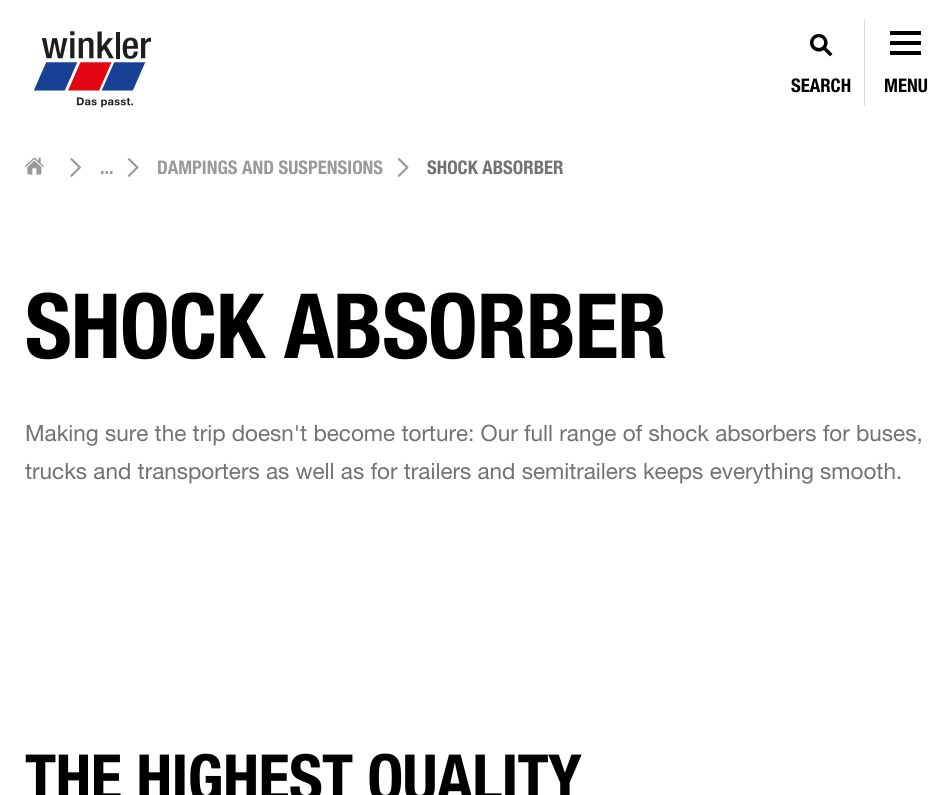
#include <cairo.h>
#include <math.h>
#include <stddef.h>

static cairo_t *ctx;

static void use_color(int r, int g, int b) {
    cairo_set_source_rgb(ctx, r / 255.0, g / 255.0, b / 255.0);
}

static void spaced_text(double x, double y, const char *s, double letter, double word) {
    cairo_move_to(ctx, x, y);
    while (*s) {
        char ch[5] = {0};
        int n = 0;
        do ch[n++] = *s++; while ((*s & 0xC0) == 0x80);
        cairo_show_text(ctx, ch);
        cairo_rel_move_to(ctx, letter + word * (*ch == ' '), 0);
    }
}

static void picture(const char *path, double x, double y, double w, double h) {
    cairo_surface_t *image = cairo_image_surface_create_from_png(path);
    cairo_save(ctx);
    cairo_set_source_surface(ctx, image, x, y);
    cairo_rectangle(ctx, x, y, w, h);
    cairo_fill(ctx);
    cairo_restore(ctx);
    cairo_surface_destroy(image);
}

int main(void) {
    cairo_surface_t *surface = cairo_image_surface_create(CAIRO_FORMAT_RGB24, 952, 795);
    ctx = cairo_create(surface);
    cairo_font_options_t *options = cairo_font_options_create();
    cairo_font_options_set_hint_metrics(options, CAIRO_HINT_METRICS_OFF);
    cairo_font_options_set_hint_style(options, CAIRO_HINT_STYLE_NONE);
    cairo_set_font_options(ctx, options);
    cairo_set_miter_limit(ctx, 4);
    use_color(255, 255, 255);
    cairo_paint(ctx);
    picture("img1.png", 34, 31, 117, 77);
    use_color(217, 217, 217);
    cairo_rectangle(ctx, 864, 19, 1, 87);
    cairo_fill(ctx);
    picture("img2.png", 810, 33, 23, 24);
    cairo_select_font_face(ctx, "Helvetica Neue", CAIRO_FONT_SLANT_NORMAL, CAIRO_FONT_WEIGHT_BOLD);
    cairo_set_font_size(ctx, 18.75);
    use_color(0, 0, 0);
    cairo_move_to(ctx, 791, 92);
    cairo_show_text(ctx, "SEARCH");
    cairo_rectangle(ctx, 890, 51, 31, 4);
    cairo_fill(ctx);
    cairo_rectangle(ctx, 890, 41, 31, 4);
    cairo_fill(ctx);
    cairo_rectangle(ctx, 890, 31, 31, 4);
    cairo_fill(ctx);
    cairo_move_to(ctx, 884, 92);
    cairo_show_text(ctx, "MENU");
    picture("img3.png", 25, 157, 19, 18);
    picture("img4.png", 70, 158, 11, 19);
    use_color(153, 153, 153);
    cairo_move_to(ctx, 100, 174);
    cairo_show_text(ctx, "...");
    picture("img5.png", 127, 158, 12, 19);
    cairo_move_to(ctx, 157, 174);
    cairo_show_text(ctx, "DAMPINGS AND SUSPENSIONS");
    picture("img5.png", 397, 158, 12, 19);
    use_color(112, 114, 117);
    cairo_move_to(ctx, 427, 174);
    cairo_show_text(ctx, "SHOCK ABSORBER");
    cairo_set_font_size(ctx, 90);
    use_color(0, 0, 0);
    spaced_text(25, 358, "SHOCK ABSORBER", -1, 0);
    cairo_select_font_face(ctx, "Helvetica Neue", CAIRO_FONT_SLANT_NORMAL, CAIRO_FONT_WEIGHT_NORMAL);
    cairo_set_font_size(ctx, 22.5);
    use_color(112, 114, 117);
    cairo_move_to(ctx, 25, 441);
    cairo_show_text(ctx, "Making sure the trip doesn't become torture: Our full range of shock absorbers for buses,");
    cairo_move_to(ctx, 25, 479);
    cairo_show_text(ctx, "trucks and transporters as well as for trailers and semitrailers keeps everything smooth.");
    cairo_select_font_face(ctx, "Helvetica Neue", CAIRO_FONT_SLANT_NORMAL, CAIRO_FONT_WEIGHT_BOLD);
    cairo_set_font_size(ctx, 65);
    use_color(0, 0, 0);
    spaced_text(25, 801, "THE HIGHEST QUALITY", -0.75, 0);
    cairo_surface_write_to_png(surface, "result.png");
    cairo_font_options_destroy(options);
    cairo_destroy(ctx);
    cairo_surface_destroy(surface);
    return 0;
}
